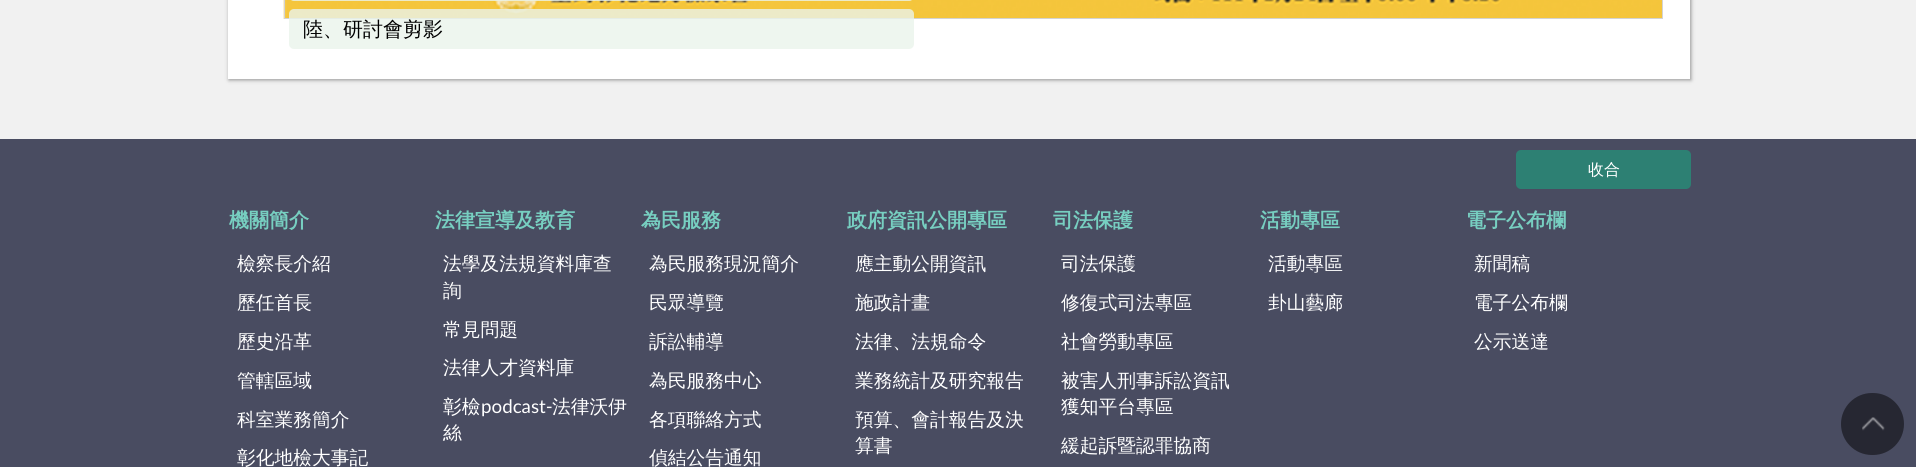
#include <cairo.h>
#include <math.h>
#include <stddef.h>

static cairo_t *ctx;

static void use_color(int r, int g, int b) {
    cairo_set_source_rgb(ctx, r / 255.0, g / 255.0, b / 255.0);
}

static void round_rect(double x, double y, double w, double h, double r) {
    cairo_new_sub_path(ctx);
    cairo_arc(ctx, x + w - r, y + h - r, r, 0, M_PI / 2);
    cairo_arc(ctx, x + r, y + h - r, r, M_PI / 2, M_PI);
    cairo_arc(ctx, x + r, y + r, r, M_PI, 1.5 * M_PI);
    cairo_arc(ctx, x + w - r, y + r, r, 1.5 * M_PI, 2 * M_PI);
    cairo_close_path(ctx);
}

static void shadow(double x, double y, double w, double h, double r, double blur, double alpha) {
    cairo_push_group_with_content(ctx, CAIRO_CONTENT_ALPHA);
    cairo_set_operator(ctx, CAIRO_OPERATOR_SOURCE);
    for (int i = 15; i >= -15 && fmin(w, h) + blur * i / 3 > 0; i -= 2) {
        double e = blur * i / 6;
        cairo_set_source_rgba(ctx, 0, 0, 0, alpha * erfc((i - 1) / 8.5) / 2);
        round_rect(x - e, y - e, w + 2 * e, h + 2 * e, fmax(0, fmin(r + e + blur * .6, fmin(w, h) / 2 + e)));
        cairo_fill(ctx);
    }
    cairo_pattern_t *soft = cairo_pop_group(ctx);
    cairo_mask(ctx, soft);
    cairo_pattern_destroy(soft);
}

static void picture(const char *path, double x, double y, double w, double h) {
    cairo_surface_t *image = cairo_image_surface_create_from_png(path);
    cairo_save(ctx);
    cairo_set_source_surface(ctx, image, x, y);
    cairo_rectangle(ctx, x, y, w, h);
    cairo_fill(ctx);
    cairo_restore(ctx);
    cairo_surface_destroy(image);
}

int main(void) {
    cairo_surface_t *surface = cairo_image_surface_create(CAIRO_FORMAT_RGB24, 1916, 467);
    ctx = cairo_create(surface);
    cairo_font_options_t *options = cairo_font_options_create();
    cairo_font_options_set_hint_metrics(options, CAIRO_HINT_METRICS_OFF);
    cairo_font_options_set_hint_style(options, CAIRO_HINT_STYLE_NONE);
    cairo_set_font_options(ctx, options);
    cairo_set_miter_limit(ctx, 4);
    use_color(241, 241, 241);
    cairo_paint(ctx);
    use_color(0, 0, 0);
    shadow(229, -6, 1462, 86, 0, 2, 0.4);
    use_color(255, 255, 255);
    cairo_rectangle(ctx, 228, 0, 1462, 79);
    cairo_fill(ctx);
    picture("img1.png", 283, 0, 1379, 19);
    cairo_rectangle(ctx, 284.5, -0.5, 1378, 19);
    use_color(211, 211, 211);
    cairo_set_line_width(ctx, 1);
    cairo_stroke(ctx);
    cairo_set_source_rgba(ctx, 0.914, 0.957, 0.922, 0.8);
    round_rect(289, -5, 625, 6, 5);
    cairo_fill(ctx);
    round_rect(289, 9, 625, 40, 5);
    cairo_fill(ctx);
    cairo_select_font_face(ctx, "WenQuanYi Zen Hei Medium", CAIRO_FONT_SLANT_NORMAL, CAIRO_FONT_WEIGHT_NORMAL);
    cairo_set_font_size(ctx, 20);
    use_color(0, 0, 0);
    cairo_move_to(ctx, 303, 36);
    cairo_show_text(ctx, "陸、研討會剪影");
    use_color(73, 76, 97);
    cairo_rectangle(ctx, 0, 139, 1916, 328);
    cairo_fill(ctx);
    use_color(45, 128, 115);
    round_rect(1516, 150, 175, 39, 5);
    cairo_fill(ctx);
    cairo_set_font_size(ctx, 16);
    use_color(255, 255, 255);
    cairo_move_to(ctx, 1588, 175);
    cairo_show_text(ctx, "收合");
    cairo_select_font_face(ctx, "WenQuanYi Zen Hei", CAIRO_FONT_SLANT_NORMAL, CAIRO_FONT_WEIGHT_BOLD);
    cairo_set_font_size(ctx, 20);
    use_color(119, 207, 193);
    cairo_move_to(ctx, 229, 227);
    cairo_show_text(ctx, "機關簡介");
    cairo_select_font_face(ctx, "WenQuanYi Zen Hei Medium", CAIRO_FONT_SLANT_NORMAL, CAIRO_FONT_WEIGHT_NORMAL);
    cairo_set_font_size(ctx, 18.75);
    use_color(255, 255, 255);
    cairo_move_to(ctx, 237, 270);
    cairo_show_text(ctx, "檢察長介紹");
    cairo_move_to(ctx, 237, 309);
    cairo_show_text(ctx, "歷任首長");
    cairo_move_to(ctx, 237, 348);
    cairo_show_text(ctx, "歷史沿革");
    cairo_move_to(ctx, 237, 387);
    cairo_show_text(ctx, "管轄區域");
    cairo_move_to(ctx, 237, 426);
    cairo_show_text(ctx, "科室業務簡介");
    cairo_move_to(ctx, 237, 464);
    cairo_show_text(ctx, "彰化地檢大事記");
    cairo_select_font_face(ctx, "WenQuanYi Zen Hei", CAIRO_FONT_SLANT_NORMAL, CAIRO_FONT_WEIGHT_BOLD);
    cairo_set_font_size(ctx, 20);
    use_color(119, 207, 193);
    cairo_move_to(ctx, 435, 227);
    cairo_show_text(ctx, "法律宣導及教育");
    cairo_select_font_face(ctx, "WenQuanYi Zen Hei Medium", CAIRO_FONT_SLANT_NORMAL, CAIRO_FONT_WEIGHT_NORMAL);
    cairo_set_font_size(ctx, 18.75);
    use_color(255, 255, 255);
    cairo_move_to(ctx, 443, 270);
    cairo_show_text(ctx, "法學及法規資料庫查");
    cairo_move_to(ctx, 443, 297);
    cairo_show_text(ctx, "詢");
    cairo_move_to(ctx, 443, 336);
    cairo_show_text(ctx, "常見問題");
    cairo_move_to(ctx, 443, 374);
    cairo_show_text(ctx, "法律人才資料庫");
    cairo_move_to(ctx, 443, 413);
    cairo_show_text(ctx, "彰檢");
    cairo_select_font_face(ctx, "Lato", CAIRO_FONT_SLANT_NORMAL, CAIRO_FONT_WEIGHT_NORMAL);
    cairo_move_to(ctx, 481, 413);
    cairo_show_text(ctx, "podcast-");
    cairo_select_font_face(ctx, "WenQuanYi Zen Hei Medium", CAIRO_FONT_SLANT_NORMAL, CAIRO_FONT_WEIGHT_NORMAL);
    cairo_move_to(ctx, 552, 413);
    cairo_show_text(ctx, "法律沃伊");
    cairo_move_to(ctx, 443, 439);
    cairo_show_text(ctx, "絲");
    cairo_select_font_face(ctx, "WenQuanYi Zen Hei", CAIRO_FONT_SLANT_NORMAL, CAIRO_FONT_WEIGHT_BOLD);
    cairo_set_font_size(ctx, 20);
    use_color(119, 207, 193);
    cairo_move_to(ctx, 641, 227);
    cairo_show_text(ctx, "為民服務");
    cairo_select_font_face(ctx, "WenQuanYi Zen Hei Medium", CAIRO_FONT_SLANT_NORMAL, CAIRO_FONT_WEIGHT_NORMAL);
    cairo_set_font_size(ctx, 18.75);
    use_color(255, 255, 255);
    cairo_move_to(ctx, 649, 270);
    cairo_show_text(ctx, "為民服務現況簡介");
    cairo_move_to(ctx, 649, 309);
    cairo_show_text(ctx, "民眾導覽");
    cairo_move_to(ctx, 649, 348);
    cairo_show_text(ctx, "訴訟輔導");
    cairo_move_to(ctx, 649, 387);
    cairo_show_text(ctx, "為民服務中心");
    cairo_move_to(ctx, 649, 426);
    cairo_show_text(ctx, "各項聯絡方式");
    cairo_move_to(ctx, 649, 464);
    cairo_show_text(ctx, "偵結公告通知");
    cairo_select_font_face(ctx, "WenQuanYi Zen Hei", CAIRO_FONT_SLANT_NORMAL, CAIRO_FONT_WEIGHT_BOLD);
    cairo_set_font_size(ctx, 20);
    use_color(119, 207, 193);
    cairo_move_to(ctx, 847, 227);
    cairo_show_text(ctx, "政府資訊公開專區");
    cairo_select_font_face(ctx, "WenQuanYi Zen Hei Medium", CAIRO_FONT_SLANT_NORMAL, CAIRO_FONT_WEIGHT_NORMAL);
    cairo_set_font_size(ctx, 18.75);
    use_color(255, 255, 255);
    cairo_move_to(ctx, 855, 270);
    cairo_show_text(ctx, "應主動公開資訊");
    cairo_move_to(ctx, 855, 309);
    cairo_show_text(ctx, "施政計畫");
    cairo_move_to(ctx, 855, 348);
    cairo_show_text(ctx, "法律、法規命令");
    cairo_move_to(ctx, 855, 387);
    cairo_show_text(ctx, "業務統計及研究報告");
    cairo_move_to(ctx, 855, 426);
    cairo_show_text(ctx, "預算、會計報告及決");
    cairo_move_to(ctx, 855, 452);
    cairo_show_text(ctx, "算書");
    cairo_select_font_face(ctx, "WenQuanYi Zen Hei", CAIRO_FONT_SLANT_NORMAL, CAIRO_FONT_WEIGHT_BOLD);
    cairo_set_font_size(ctx, 20);
    use_color(119, 207, 193);
    cairo_move_to(ctx, 1053, 227);
    cairo_show_text(ctx, "司法保護");
    cairo_select_font_face(ctx, "WenQuanYi Zen Hei Medium", CAIRO_FONT_SLANT_NORMAL, CAIRO_FONT_WEIGHT_NORMAL);
    cairo_set_font_size(ctx, 18.75);
    use_color(255, 255, 255);
    cairo_move_to(ctx, 1061, 270);
    cairo_show_text(ctx, "司法保護");
    cairo_move_to(ctx, 1061, 309);
    cairo_show_text(ctx, "修復式司法專區");
    cairo_move_to(ctx, 1061, 348);
    cairo_show_text(ctx, "社會勞動專區");
    cairo_move_to(ctx, 1061, 387);
    cairo_show_text(ctx, "被害人刑事訴訟資訊");
    cairo_move_to(ctx, 1061, 413);
    cairo_show_text(ctx, "獲知平台專區");
    cairo_move_to(ctx, 1061, 452);
    cairo_show_text(ctx, "緩起訴暨認罪協商");
    cairo_select_font_face(ctx, "WenQuanYi Zen Hei", CAIRO_FONT_SLANT_NORMAL, CAIRO_FONT_WEIGHT_BOLD);
    cairo_set_font_size(ctx, 20);
    use_color(119, 207, 193);
    cairo_move_to(ctx, 1260, 227);
    cairo_show_text(ctx, "活動專區");
    cairo_select_font_face(ctx, "WenQuanYi Zen Hei Medium", CAIRO_FONT_SLANT_NORMAL, CAIRO_FONT_WEIGHT_NORMAL);
    cairo_set_font_size(ctx, 18.75);
    use_color(255, 255, 255);
    cairo_move_to(ctx, 1268, 270);
    cairo_show_text(ctx, "活動專區");
    cairo_move_to(ctx, 1268, 309);
    cairo_show_text(ctx, "卦山藝廊");
    cairo_select_font_face(ctx, "WenQuanYi Zen Hei", CAIRO_FONT_SLANT_NORMAL, CAIRO_FONT_WEIGHT_BOLD);
    cairo_set_font_size(ctx, 20);
    use_color(119, 207, 193);
    cairo_move_to(ctx, 1466, 227);
    cairo_show_text(ctx, "電子公布欄");
    cairo_select_font_face(ctx, "WenQuanYi Zen Hei Medium", CAIRO_FONT_SLANT_NORMAL, CAIRO_FONT_WEIGHT_NORMAL);
    cairo_set_font_size(ctx, 18.75);
    use_color(255, 255, 255);
    cairo_move_to(ctx, 1474, 270);
    cairo_show_text(ctx, "新聞稿");
    cairo_move_to(ctx, 1474, 309);
    cairo_show_text(ctx, "電子公布欄");
    cairo_move_to(ctx, 1474, 348);
    cairo_show_text(ctx, "公示送達");
    use_color(38, 39, 50);
    round_rect(1841, 393, 63, 62, 31);
    cairo_fill(ctx);
    picture("img2.png", 1862, 417, 23, 14);
    cairo_surface_write_to_png(surface, "result.png");
    cairo_font_options_destroy(options);
    cairo_destroy(ctx);
    cairo_surface_destroy(surface);
    return 0;
}
